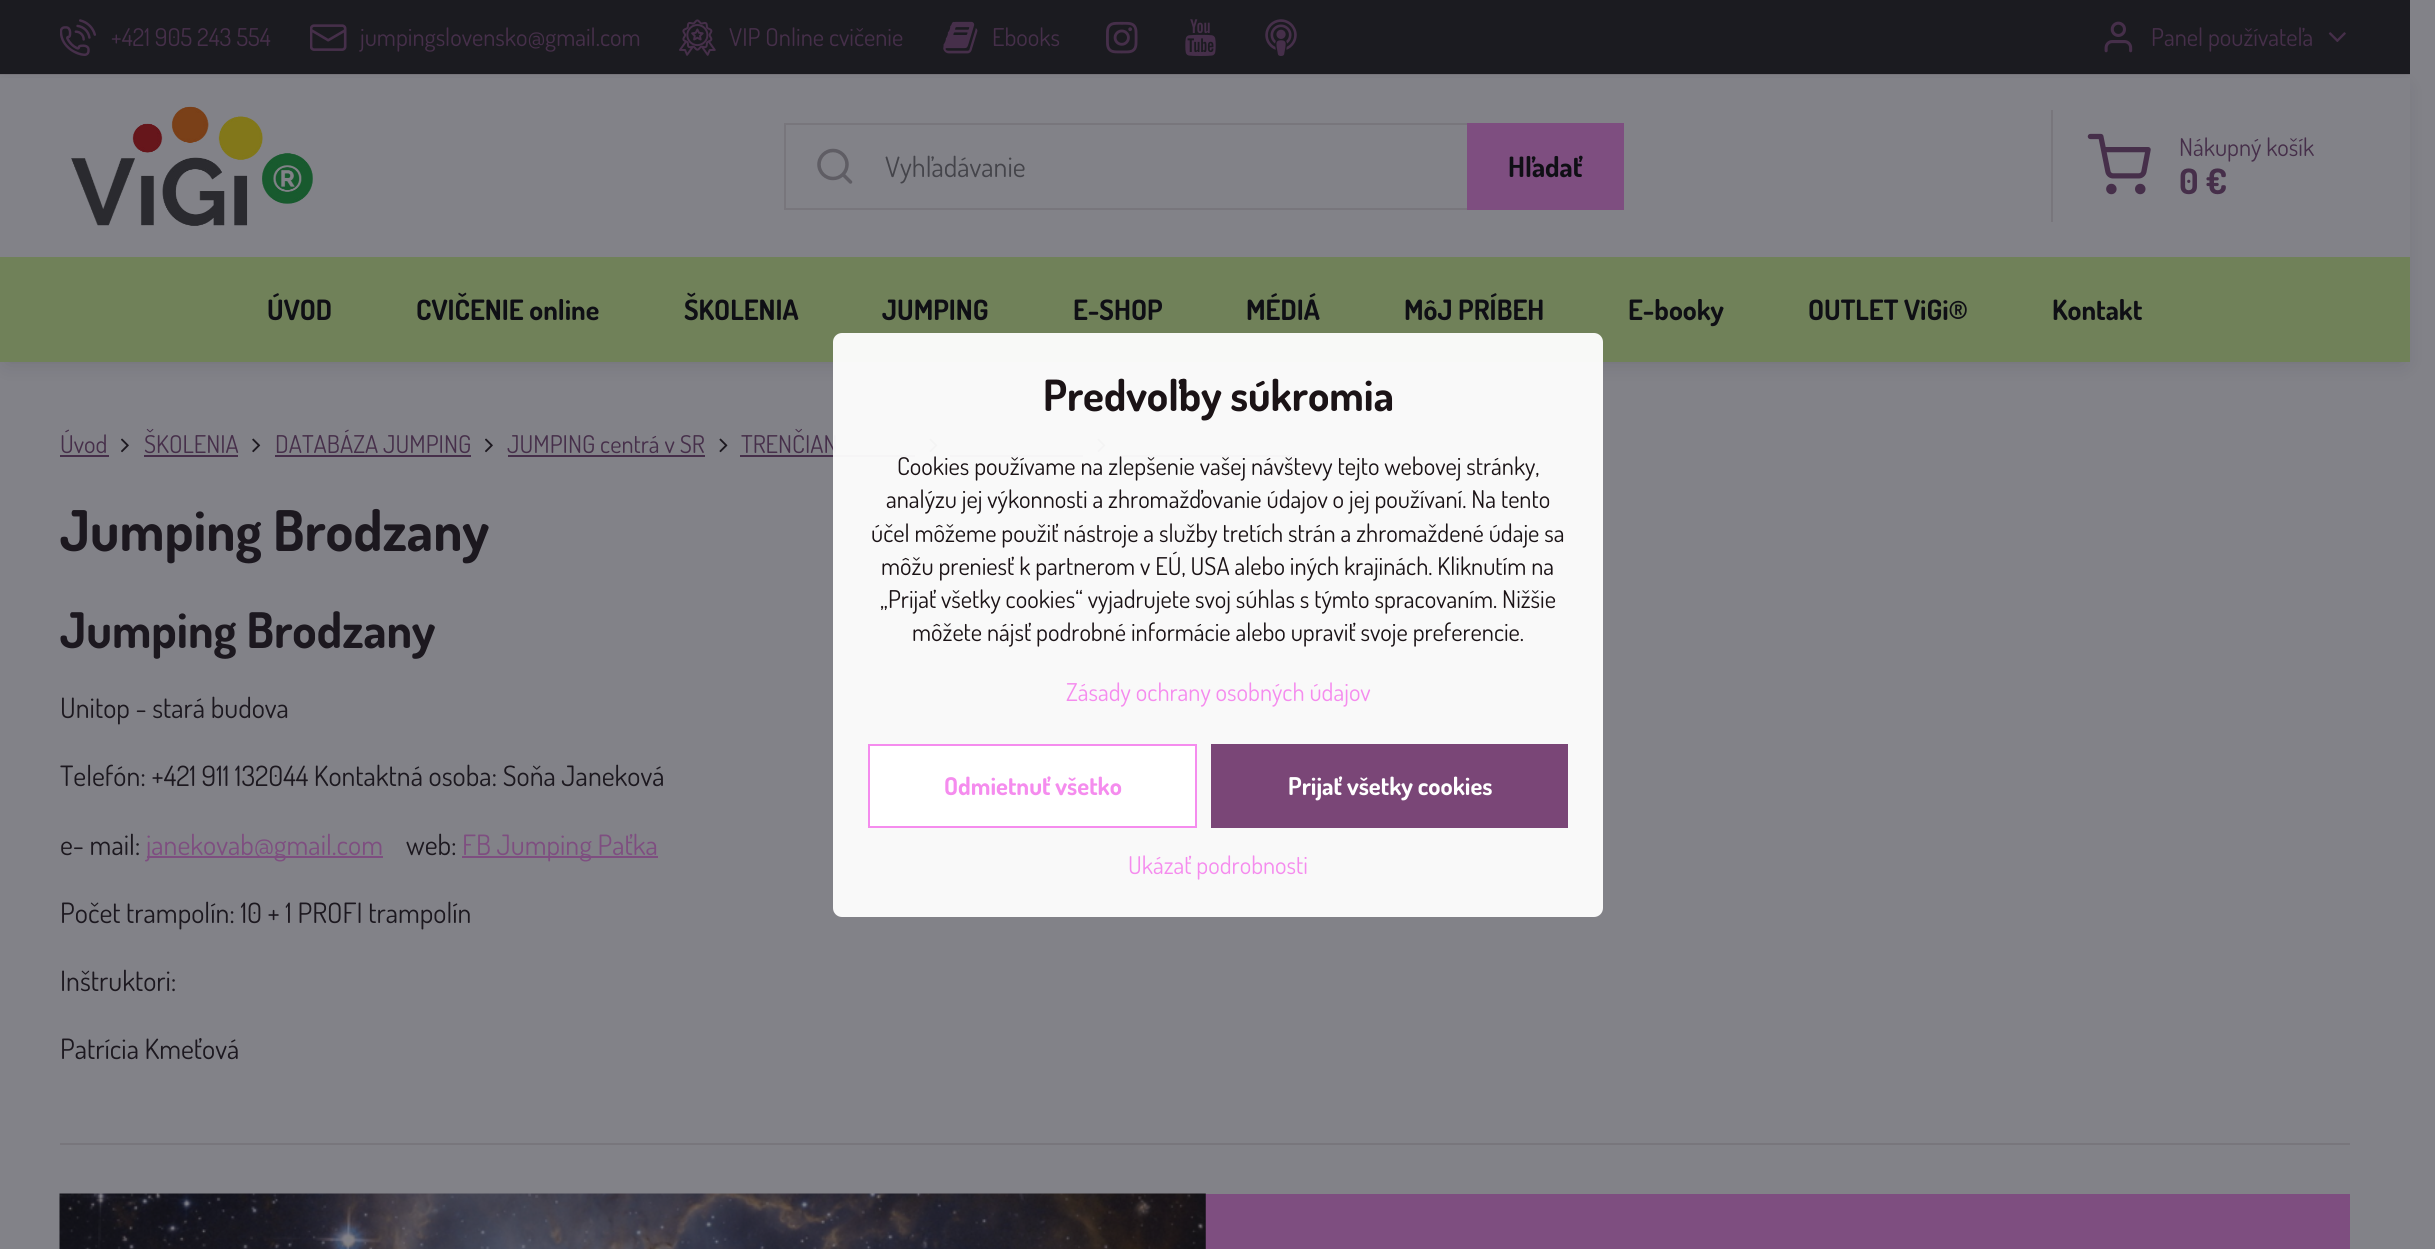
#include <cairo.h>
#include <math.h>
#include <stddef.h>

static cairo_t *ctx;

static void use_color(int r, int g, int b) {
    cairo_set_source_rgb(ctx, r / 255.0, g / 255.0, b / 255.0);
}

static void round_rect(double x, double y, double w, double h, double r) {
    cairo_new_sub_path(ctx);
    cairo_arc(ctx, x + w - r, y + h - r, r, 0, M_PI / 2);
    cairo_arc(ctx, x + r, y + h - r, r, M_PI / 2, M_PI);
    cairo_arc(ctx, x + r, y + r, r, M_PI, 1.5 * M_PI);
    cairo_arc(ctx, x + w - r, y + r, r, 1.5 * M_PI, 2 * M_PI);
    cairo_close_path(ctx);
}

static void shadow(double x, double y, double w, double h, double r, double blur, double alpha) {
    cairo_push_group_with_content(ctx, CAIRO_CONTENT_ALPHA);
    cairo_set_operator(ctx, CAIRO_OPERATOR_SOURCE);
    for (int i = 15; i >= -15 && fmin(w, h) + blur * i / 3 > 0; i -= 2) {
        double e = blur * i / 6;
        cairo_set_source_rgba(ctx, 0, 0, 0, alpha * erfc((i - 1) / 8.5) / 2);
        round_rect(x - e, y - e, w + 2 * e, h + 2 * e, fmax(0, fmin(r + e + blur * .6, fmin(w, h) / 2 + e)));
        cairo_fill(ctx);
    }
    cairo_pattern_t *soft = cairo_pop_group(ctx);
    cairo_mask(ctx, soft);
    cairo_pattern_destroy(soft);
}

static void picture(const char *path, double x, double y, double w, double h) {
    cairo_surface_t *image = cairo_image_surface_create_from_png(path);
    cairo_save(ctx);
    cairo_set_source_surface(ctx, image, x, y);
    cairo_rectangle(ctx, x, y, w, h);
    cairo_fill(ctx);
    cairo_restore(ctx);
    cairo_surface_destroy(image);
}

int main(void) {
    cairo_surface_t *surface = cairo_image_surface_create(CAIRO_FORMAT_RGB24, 2435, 1249);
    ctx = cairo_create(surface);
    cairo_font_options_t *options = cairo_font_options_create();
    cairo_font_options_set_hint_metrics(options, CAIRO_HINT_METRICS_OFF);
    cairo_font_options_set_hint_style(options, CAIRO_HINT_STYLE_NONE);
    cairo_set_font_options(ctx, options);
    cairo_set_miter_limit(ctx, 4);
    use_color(130, 130, 136);
    cairo_paint(ctx);
    use_color(27, 27, 32);
    cairo_rectangle(ctx, 0, 0, 2410, 74);
    cairo_fill(ctx);
    use_color(120, 118, 124);
    cairo_rectangle(ctx, 0, 74, 2410, 1);
    cairo_fill(ctx);
    picture("img1.png", 60, 19, 36, 37);
    cairo_select_font_face(ctx, "Dosis", CAIRO_FONT_SLANT_NORMAL, CAIRO_FONT_WEIGHT_NORMAL);
    cairo_set_font_size(ctx, 24.5);
    use_color(70, 47, 74);
    cairo_move_to(ctx, 111, 46);
    cairo_show_text(ctx, "+421 905 243 554");
    picture("img2.png", 310, 24, 37, 27);
    cairo_move_to(ctx, 360, 46);
    cairo_show_text(ctx, "jumpingslovensko@gmail.com");
    picture("img3.png", 679, 19, 37, 37);
    cairo_move_to(ctx, 729, 46);
    cairo_show_text(ctx, "VIP Online cvičenie");
    picture("img4.png", 943, 21, 35, 33);
    cairo_move_to(ctx, 992, 46);
    cairo_show_text(ctx, "Ebooks");
    picture("img5.png", 1106, 21, 32, 33);
    picture("img6.png", 1185, 19, 31, 37);
    picture("img7.png", 1265, 19, 32, 37);
    picture("img8.png", 2104, 21, 29, 32);
    cairo_move_to(ctx, 2151, 46);
    cairo_show_text(ctx, "Panel používateľa");
    picture("img9.png", 2328, 32, 18, 10);
    use_color(15, 15, 30);
    shadow(7, 89, 2396, 273, 0, 10.5, 0.15);
    use_color(130, 130, 136);
    cairo_rectangle(ctx, 0, 78, 2410, 179);
    cairo_fill(ctx);
    picture("img10.png", 71, 106, 242, 120);
    cairo_rectangle(ctx, 785, 124, 838, 85);
    use_color(120, 118, 124);
    cairo_stroke(ctx);
    picture("img11.png", 817, 148, 36, 36);
    cairo_set_font_size(ctx, 28);
    use_color(68, 68, 74);
    cairo_move_to(ctx, 885, 177);
    cairo_show_text(ctx, "Vyhľadávanie");
    use_color(126, 78, 128);
    cairo_rectangle(ctx, 1467, 123, 157, 87);
    cairo_fill(ctx);
    cairo_select_font_face(ctx, "Dosis", CAIRO_FONT_SLANT_NORMAL, CAIRO_FONT_WEIGHT_BOLD);
    use_color(15, 15, 21);
    cairo_move_to(ctx, 1508, 177);
    cairo_show_text(ctx, "Hľadať");
    use_color(120, 118, 124);
    cairo_rectangle(ctx, 2051, 110, 2, 112);
    cairo_fill(ctx);
    picture("img12.png", 2087, 133, 64, 62);
    cairo_select_font_face(ctx, "Dosis", CAIRO_FONT_SLANT_NORMAL, CAIRO_FONT_WEIGHT_NORMAL);
    cairo_set_font_size(ctx, 24.5);
    use_color(70, 47, 74);
    cairo_move_to(ctx, 2179, 156);
    cairo_show_text(ctx, "Nákupný košík");
    cairo_select_font_face(ctx, "Dosis", CAIRO_FONT_SLANT_NORMAL, CAIRO_FONT_WEIGHT_BOLD);
    cairo_set_font_size(ctx, 35);
    cairo_move_to(ctx, 2179, 194);
    cairo_show_text(ctx, "0 €");
    use_color(112, 129, 89);
    cairo_rectangle(ctx, 0, 257, 2410, 105);
    cairo_fill(ctx);
    cairo_set_font_size(ctx, 28);
    use_color(15, 15, 21);
    cairo_move_to(ctx, 267, 320);
    cairo_show_text(ctx, "ÚVOD");
    cairo_move_to(ctx, 416, 320);
    cairo_show_text(ctx, "CVIČENIE online");
    cairo_move_to(ctx, 684, 320);
    cairo_show_text(ctx, "ŠKOLENIA");
    cairo_move_to(ctx, 882, 320);
    cairo_show_text(ctx, "JUMPING");
    cairo_move_to(ctx, 1073, 320);
    cairo_show_text(ctx, "E-SHOP");
    cairo_move_to(ctx, 1246, 320);
    cairo_show_text(ctx, "MÉDIÁ");
    cairo_move_to(ctx, 1404, 320);
    cairo_show_text(ctx, "MôJ PRÍBEH");
    cairo_move_to(ctx, 1628, 320);
    cairo_show_text(ctx, "E-booky");
    cairo_move_to(ctx, 1808, 320);
    cairo_show_text(ctx, "OUTLET ViGi®");
    cairo_move_to(ctx, 2052, 320);
    cairo_show_text(ctx, "Kontakt");
    cairo_select_font_face(ctx, "Dosis", CAIRO_FONT_SLANT_NORMAL, CAIRO_FONT_WEIGHT_NORMAL);
    cairo_set_font_size(ctx, 24.5);
    use_color(70, 47, 74);
    cairo_move_to(ctx, 60, 453);
    cairo_show_text(ctx, "Úvod");
    cairo_rectangle(ctx, 60, 455, 49, 2);
    cairo_fill(ctx);
    picture("img13.png", 121, 438, 8, 15);
    cairo_move_to(ctx, 144, 453);
    cairo_show_text(ctx, "ŠKOLENIA");
    cairo_rectangle(ctx, 144, 455, 94, 2);
    cairo_fill(ctx);
    picture("img14.png", 252, 438, 9, 15);
    cairo_move_to(ctx, 275, 453);
    cairo_show_text(ctx, "DATABÁZA JUMPING");
    cairo_rectangle(ctx, 275, 455, 196, 2);
    cairo_fill(ctx);
    picture("img13.png", 485, 438, 8, 15);
    cairo_move_to(ctx, 507, 453);
    cairo_show_text(ctx, "JUMPING centrá v SR");
    cairo_rectangle(ctx, 508, 455, 197, 2);
    cairo_fill(ctx);
    picture("img15.png", 719, 438, 9, 15);
    cairo_move_to(ctx, 741, 453);
    cairo_show_text(ctx, "TRENČIAN");
    cairo_rectangle(ctx, 740, 455, 175, 2);
    cairo_fill(ctx);
    picture("img15.png", 929, 438, 9, 15);
    cairo_rectangle(ctx, 950, 455, 133, 2);
    cairo_fill(ctx);
    picture("img15.png", 1097, 438, 9, 15);
    cairo_rectangle(ctx, 1120, 455, 175, 2);
    cairo_fill(ctx);
    cairo_select_font_face(ctx, "Dosis", CAIRO_FONT_SLANT_NORMAL, CAIRO_FONT_WEIGHT_BOLD);
    cairo_set_font_size(ctx, 56);
    use_color(28, 24, 31);
    cairo_move_to(ctx, 60, 551);
    cairo_show_text(ctx, "Jumping Brodzany");
    cairo_set_font_size(ctx, 49);
    cairo_move_to(ctx, 60, 648);
    cairo_show_text(ctx, "Jumping Brodzany");
    cairo_select_font_face(ctx, "Dosis", CAIRO_FONT_SLANT_NORMAL, CAIRO_FONT_WEIGHT_NORMAL);
    cairo_set_font_size(ctx, 28);
    cairo_move_to(ctx, 60, 718);
    cairo_show_text(ctx, "Unitop - stará budova");
    cairo_move_to(ctx, 60, 786);
    cairo_show_text(ctx, "Telefón: +421 911 132044 Kontaktná osoba: Soňa Janeková");
    cairo_move_to(ctx, 60, 855);
    cairo_show_text(ctx, "e- mail:");
    use_color(126, 78, 128);
    cairo_rectangle(ctx, 147, 856, 236, 2);
    cairo_fill(ctx);
    cairo_move_to(ctx, 146, 855);
    cairo_show_text(ctx, "janekovab@gmail.com");
    use_color(28, 24, 31);
    cairo_move_to(ctx, 406, 855);
    cairo_show_text(ctx, "web:");
    use_color(126, 78, 128);
    cairo_rectangle(ctx, 462, 856, 196, 2);
    cairo_fill(ctx);
    cairo_move_to(ctx, 462, 855);
    cairo_show_text(ctx, "FB Jumping Paťka");
    use_color(28, 24, 31);
    cairo_move_to(ctx, 60, 923);
    cairo_show_text(ctx, "Počet trampolín: 10 + 1 PROFI trampolín");
    cairo_move_to(ctx, 60, 991);
    cairo_show_text(ctx, "Inštruktori:");
    cairo_move_to(ctx, 60, 1059);
    cairo_show_text(ctx, "Patrícia Kmeťová");
    use_color(120, 118, 124);
    cairo_rectangle(ctx, 60, 1143, 2290, 2);
    cairo_fill(ctx);
    use_color(126, 78, 128);
    cairo_rectangle(ctx, 1205, 1194, 1145, 55);
    cairo_fill(ctx);
    picture("img16.png", 59, 1193, 1147, 56);
    cairo_set_source_rgba(ctx, 1, 1, 1, 0.95);
    round_rect(833, 333, 770, 584, 9);
    cairo_fill(ctx);
    cairo_select_font_face(ctx, "Dosis", CAIRO_FONT_SLANT_NORMAL, CAIRO_FONT_WEIGHT_BOLD);
    cairo_set_font_size(ctx, 43);
    use_color(27, 19, 22);
    cairo_move_to(ctx, 1043, 411);
    cairo_show_text(ctx, "Predvoľby súkromia");
    cairo_select_font_face(ctx, "Dosis", CAIRO_FONT_SLANT_NORMAL, CAIRO_FONT_WEIGHT_NORMAL);
    cairo_set_font_size(ctx, 24.5);
    cairo_move_to(ctx, 897, 475);
    cairo_show_text(ctx, "Cookies používame na zlepšenie vašej návštevy tejto webovej stránky,");
    cairo_move_to(ctx, 886, 508);
    cairo_show_text(ctx, "analýzu jej výkonnosti a zhromažďovanie údajov o jej používaní. Na tento");
    cairo_move_to(ctx, 871, 542);
    cairo_show_text(ctx, "účel môžeme použiť nástroje a služby tretích strán a zhromaždené údaje sa");
    cairo_move_to(ctx, 881, 575);
    cairo_show_text(ctx, "môžu preniesť k partnerom v EÚ, USA alebo iných krajinách. Kliknutím na");
    cairo_move_to(ctx, 880, 608);
    cairo_show_text(ctx, "„Prijať všetky cookies“ vyjadrujete svoj súhlas s týmto spracovaním. Nižšie");
    cairo_move_to(ctx, 912, 641);
    cairo_show_text(ctx, "môžete nájsť podrobné informácie alebo upraviť svoje preferencie.");
    use_color(245, 140, 238);
    cairo_move_to(ctx, 1066, 701);
    cairo_show_text(ctx, "Zásady ochrany osobných údajov");
    use_color(255, 255, 255);
    cairo_rectangle(ctx, 869, 745, 327, 82);
    cairo_fill_preserve(ctx);
    use_color(245, 140, 238);
    cairo_stroke(ctx);
    cairo_select_font_face(ctx, "Dosis", CAIRO_FONT_SLANT_NORMAL, CAIRO_FONT_WEIGHT_BOLD);
    cairo_move_to(ctx, 944, 795);
    cairo_show_text(ctx, "Odmietnuť všetko");
    use_color(122, 70, 119);
    cairo_rectangle(ctx, 1211, 744, 357, 84);
    cairo_fill(ctx);
    use_color(255, 255, 255);
    cairo_move_to(ctx, 1288, 795);
    cairo_show_text(ctx, "Prijať všetky cookies");
    cairo_select_font_face(ctx, "Dosis", CAIRO_FONT_SLANT_NORMAL, CAIRO_FONT_WEIGHT_NORMAL);
    use_color(245, 140, 238);
    cairo_move_to(ctx, 1128, 874);
    cairo_show_text(ctx, "Ukázať podrobnosti");
    cairo_surface_write_to_png(surface, "result.png");
    cairo_font_options_destroy(options);
    cairo_destroy(ctx);
    cairo_surface_destroy(surface);
    return 0;
}
